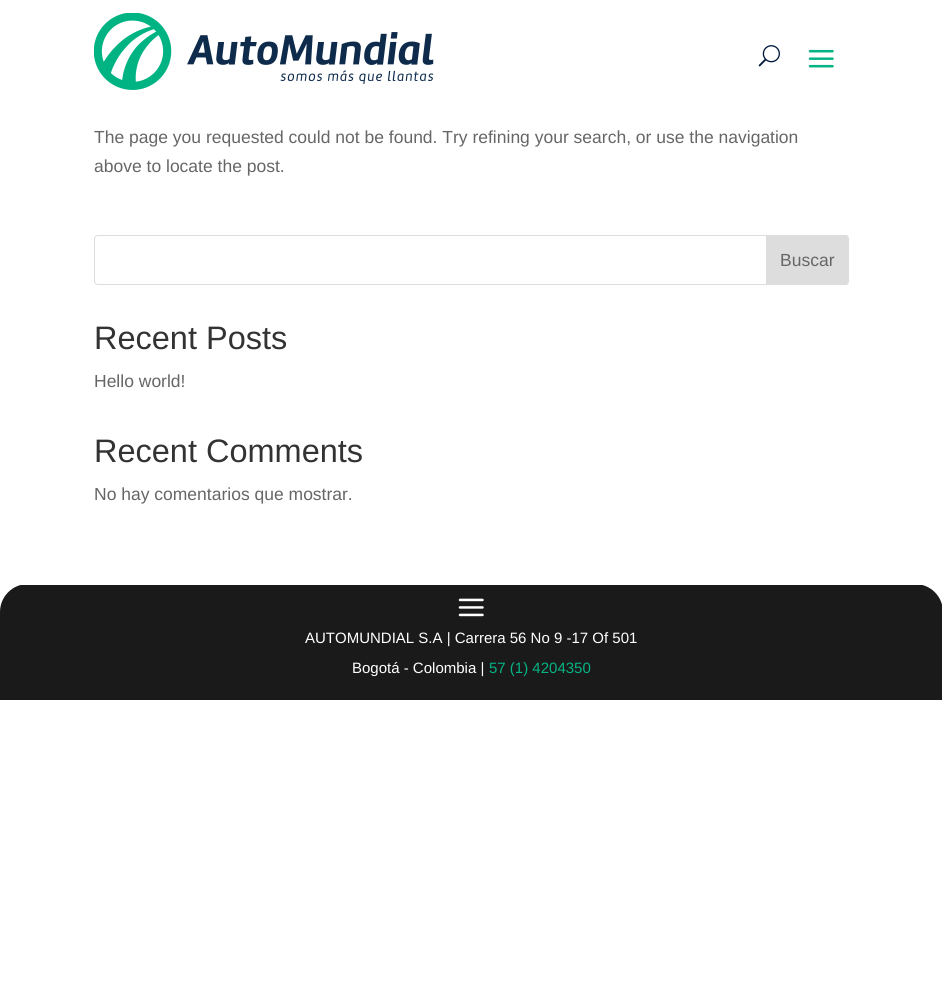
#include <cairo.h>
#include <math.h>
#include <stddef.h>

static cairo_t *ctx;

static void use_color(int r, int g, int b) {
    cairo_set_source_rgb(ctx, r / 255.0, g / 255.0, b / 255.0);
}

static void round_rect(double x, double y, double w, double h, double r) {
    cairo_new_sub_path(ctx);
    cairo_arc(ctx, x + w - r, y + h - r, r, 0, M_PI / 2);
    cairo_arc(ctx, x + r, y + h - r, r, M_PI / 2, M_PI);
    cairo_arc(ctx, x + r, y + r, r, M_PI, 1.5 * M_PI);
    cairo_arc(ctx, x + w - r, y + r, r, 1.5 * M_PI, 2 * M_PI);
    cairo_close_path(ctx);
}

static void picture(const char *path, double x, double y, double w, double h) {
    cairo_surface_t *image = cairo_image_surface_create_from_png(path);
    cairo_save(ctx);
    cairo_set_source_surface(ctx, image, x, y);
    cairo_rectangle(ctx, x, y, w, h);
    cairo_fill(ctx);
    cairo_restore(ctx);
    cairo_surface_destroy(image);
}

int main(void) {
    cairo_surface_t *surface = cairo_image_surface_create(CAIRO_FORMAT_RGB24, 942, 981);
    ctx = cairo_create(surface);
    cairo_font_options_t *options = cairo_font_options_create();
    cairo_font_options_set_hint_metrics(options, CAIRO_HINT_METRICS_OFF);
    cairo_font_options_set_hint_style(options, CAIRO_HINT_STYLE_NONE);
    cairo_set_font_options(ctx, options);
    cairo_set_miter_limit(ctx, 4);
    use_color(255, 255, 255);
    cairo_paint(ctx);
    picture("img1.png", 94, 13, 340, 77);
    picture("img2.png", 758, 45, 22, 22);
    picture("img3.png", 808, 49, 26, 19);
    cairo_select_font_face(ctx, "Liberation Sans", CAIRO_FONT_SLANT_NORMAL, CAIRO_FONT_WEIGHT_NORMAL);
    cairo_set_font_size(ctx, 17.5);
    use_color(102, 102, 102);
    cairo_move_to(ctx, 94, 143);
    cairo_show_text(ctx, "The page you requested could not be found. Try refining your search, or use the navigation");
    cairo_move_to(ctx, 94, 172);
    cairo_show_text(ctx, "above to locate the post.");
    round_rect(94.5, 235.5, 754, 49, 3.5);
    use_color(221, 221, 221);
    cairo_set_line_width(ctx, 1);
    cairo_stroke(ctx);
    cairo_new_path(ctx);
    cairo_move_to(ctx, 766.5, 235.5);
    cairo_line_to(ctx, 845, 235.5);
    cairo_curve_to(ctx, 847, 235.5, 848.5, 237, 848.5, 239);
    cairo_line_to(ctx, 848.5, 281);
    cairo_curve_to(ctx, 848.5, 283, 847, 284.5, 845, 284.5);
    cairo_line_to(ctx, 766.5, 284.5);
    cairo_close_path(ctx);
    cairo_fill_preserve(ctx);
    cairo_stroke(ctx);
    use_color(102, 102, 102);
    cairo_move_to(ctx, 780, 266);
    cairo_show_text(ctx, "Buscar");
    cairo_set_font_size(ctx, 32.5);
    use_color(51, 51, 51);
    cairo_move_to(ctx, 94, 349);
    cairo_show_text(ctx, "Recent Posts");
    cairo_set_font_size(ctx, 17.5);
    use_color(102, 102, 102);
    cairo_move_to(ctx, 94, 387);
    cairo_show_text(ctx, "Hello world!");
    cairo_set_font_size(ctx, 32.5);
    use_color(51, 51, 51);
    cairo_move_to(ctx, 94, 462);
    cairo_show_text(ctx, "Recent Comments");
    cairo_set_font_size(ctx, 17.5);
    use_color(102, 102, 102);
    cairo_move_to(ctx, 94, 500);
    cairo_show_text(ctx, "No hay comentarios que mostrar.");
    use_color(26, 26, 26);
    cairo_new_path(ctx);
    cairo_move_to(ctx, 28, 584);
    cairo_line_to(ctx, 915, 584);
    cairo_curve_to(ctx, 930.5, 584, 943, 596.5, 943, 612);
    cairo_line_to(ctx, 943, 700);
    cairo_line_to(ctx, 0, 700);
    cairo_line_to(ctx, 0, 612);
    cairo_curve_to(ctx, 0, 596.5, 12.5, 584, 28, 584);
    cairo_close_path(ctx);
    cairo_fill(ctx);
    use_color(255, 255, 255);
    cairo_rectangle(ctx, 20, 584, 903, 1);
    cairo_fill(ctx);
    picture("img4.png", 458, 598, 26, 19);
    cairo_set_font_size(ctx, 15);
    cairo_move_to(ctx, 305, 643);
    cairo_show_text(ctx, "AUTOMUNDIAL S.A | Carrera 56 No 9 -17 Of 501");
    cairo_move_to(ctx, 352, 673);
    cairo_show_text(ctx, "Bogotá - Colombia |");
    use_color(5, 180, 132);
    cairo_move_to(ctx, 489, 673);
    cairo_show_text(ctx, "57 (1) 4204350");
    cairo_surface_write_to_png(surface, "result.png");
    cairo_font_options_destroy(options);
    cairo_destroy(ctx);
    cairo_surface_destroy(surface);
    return 0;
}
